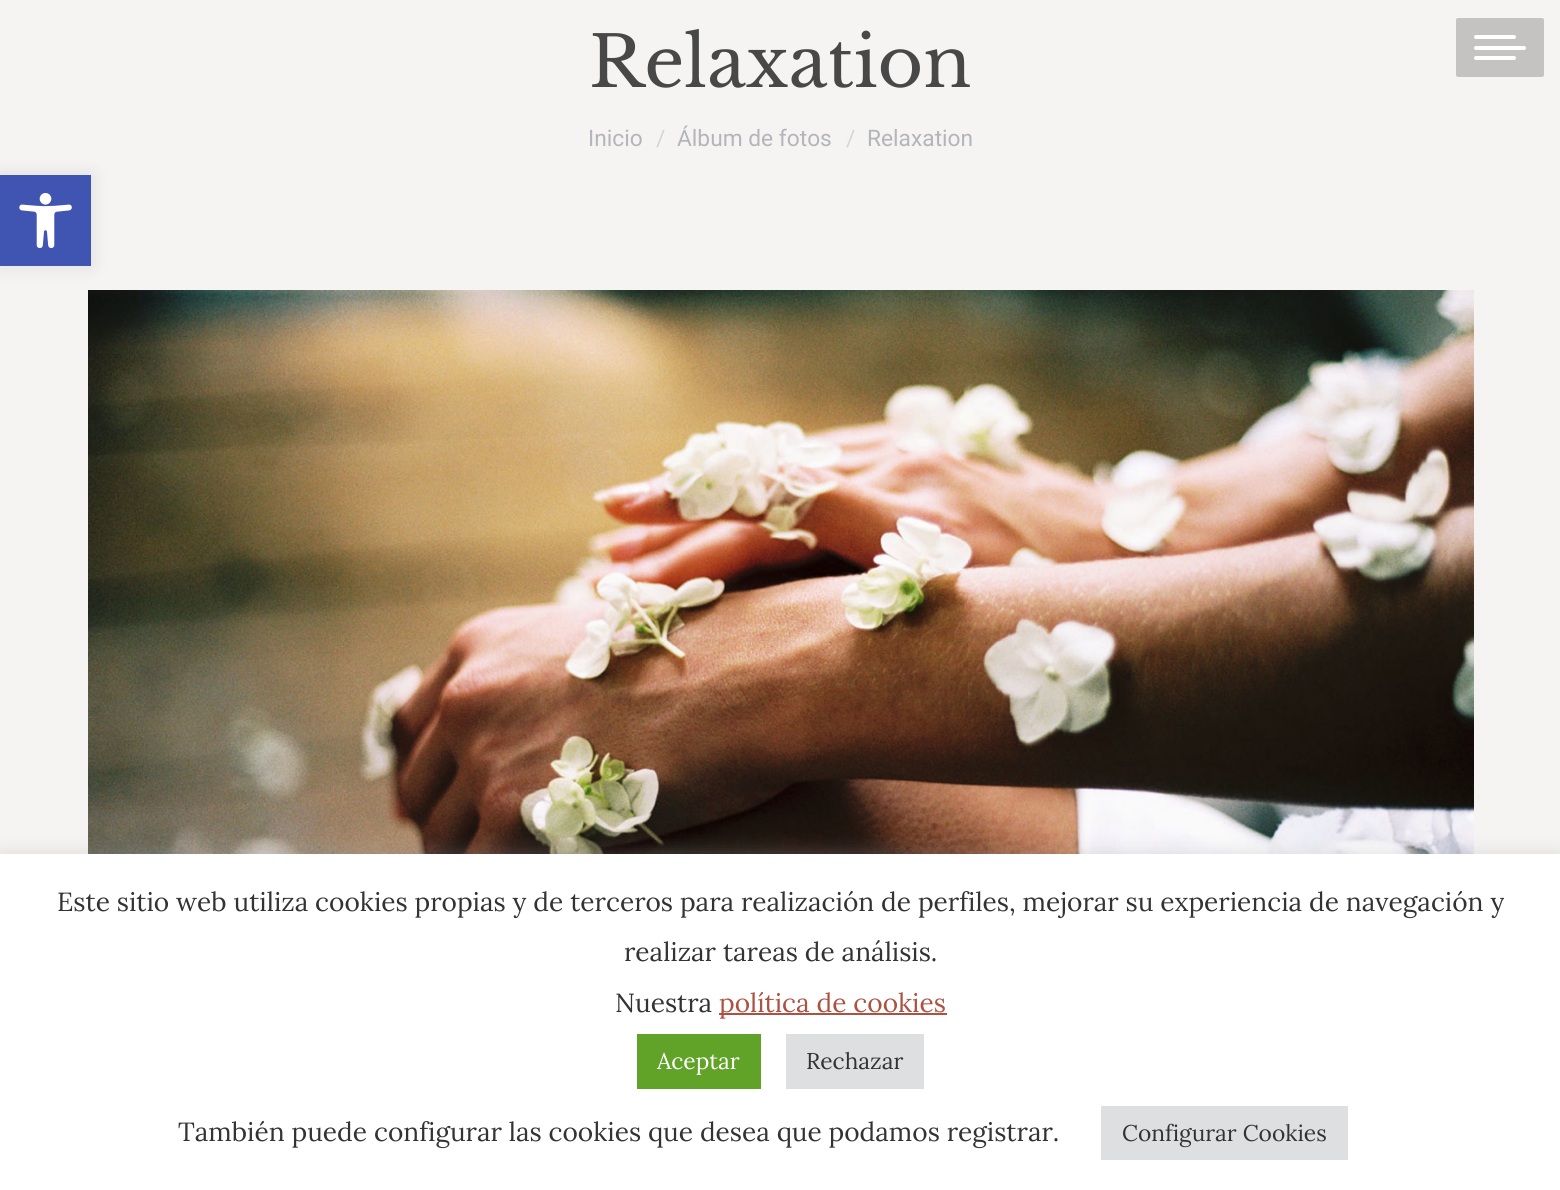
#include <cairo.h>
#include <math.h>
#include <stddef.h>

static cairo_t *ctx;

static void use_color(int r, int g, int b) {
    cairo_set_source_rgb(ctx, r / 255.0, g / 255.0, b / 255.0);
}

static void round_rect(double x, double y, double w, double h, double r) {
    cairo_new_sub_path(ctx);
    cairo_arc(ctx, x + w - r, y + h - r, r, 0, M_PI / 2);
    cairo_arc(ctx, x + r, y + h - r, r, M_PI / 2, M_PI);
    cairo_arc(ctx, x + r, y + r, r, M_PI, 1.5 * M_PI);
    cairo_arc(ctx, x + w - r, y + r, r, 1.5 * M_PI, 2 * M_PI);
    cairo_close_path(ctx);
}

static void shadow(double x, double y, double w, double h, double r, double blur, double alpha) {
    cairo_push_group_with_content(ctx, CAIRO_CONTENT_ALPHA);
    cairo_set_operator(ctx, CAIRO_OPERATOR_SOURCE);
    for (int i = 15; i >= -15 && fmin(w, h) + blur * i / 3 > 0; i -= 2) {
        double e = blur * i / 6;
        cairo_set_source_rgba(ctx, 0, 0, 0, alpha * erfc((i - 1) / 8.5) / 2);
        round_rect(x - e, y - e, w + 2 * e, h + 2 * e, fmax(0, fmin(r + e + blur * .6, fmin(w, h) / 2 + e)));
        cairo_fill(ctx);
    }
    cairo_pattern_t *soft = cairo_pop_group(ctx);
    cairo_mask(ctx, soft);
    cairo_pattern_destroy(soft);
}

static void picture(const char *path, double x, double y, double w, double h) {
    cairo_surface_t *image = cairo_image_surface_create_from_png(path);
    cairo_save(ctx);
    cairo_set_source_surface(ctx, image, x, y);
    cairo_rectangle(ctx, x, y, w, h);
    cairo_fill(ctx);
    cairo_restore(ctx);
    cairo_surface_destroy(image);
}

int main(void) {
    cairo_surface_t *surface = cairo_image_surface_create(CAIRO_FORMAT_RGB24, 1560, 1190);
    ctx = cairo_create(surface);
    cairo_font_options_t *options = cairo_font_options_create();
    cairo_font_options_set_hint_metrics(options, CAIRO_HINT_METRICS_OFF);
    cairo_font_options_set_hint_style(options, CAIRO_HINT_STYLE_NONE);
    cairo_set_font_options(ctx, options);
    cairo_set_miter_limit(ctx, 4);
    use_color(245, 244, 242);
    cairo_paint(ctx);
    cairo_select_font_face(ctx, "Libre Baskerville", CAIRO_FONT_SLANT_NORMAL, CAIRO_FONT_WEIGHT_NORMAL);
    cairo_set_font_size(ctx, 70);
    use_color(73, 72, 72);
    cairo_move_to(ctx, 589, 87);
    cairo_show_text(ctx, "Relaxation");
    cairo_select_font_face(ctx, "Roboto", CAIRO_FONT_SLANT_NORMAL, CAIRO_FONT_WEIGHT_NORMAL);
    cairo_set_font_size(ctx, 22.75);
    use_color(180, 181, 187);
    cairo_move_to(ctx, 588, 146);
    cairo_show_text(ctx, "Inicio");
    use_color(213, 213, 215);
    cairo_move_to(ctx, 656, 146);
    cairo_show_text(ctx, "/");
    use_color(180, 181, 187);
    cairo_move_to(ctx, 677, 146);
    cairo_show_text(ctx, "Álbum de fotos");
    use_color(213, 213, 215);
    cairo_move_to(ctx, 846, 146);
    cairo_show_text(ctx, "/");
    use_color(180, 181, 187);
    cairo_move_to(ctx, 867, 146);
    cairo_show_text(ctx, "Relaxation");
    use_color(196, 195, 194);
    round_rect(1456, 18, 88, 59, 2);
    cairo_fill(ctx);
    use_color(255, 255, 255);
    round_rect(1474, 35, 42, 4, 2);
    cairo_fill(ctx);
    round_rect(1474, 46, 52, 4, 2);
    cairo_fill(ctx);
    round_rect(1474, 56, 42, 4, 2);
    cairo_fill(ctx);
    picture("img1.png", 88, 290, 1386, 564);
    use_color(0, 0, 0);
    shadow(0, 175, 91, 91, 0, 9, 0.1);
    use_color(64, 84, 178);
    cairo_rectangle(ctx, 0, 175, 91, 91);
    cairo_fill(ctx);
    picture("img2.png", 19, 193, 53, 56);
    use_color(172, 171, 171);
    shadow(0, 852, 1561, 336, 0, 9, 0.3);
    use_color(255, 255, 255);
    cairo_rectangle(ctx, 0, 854, 1560, 336);
    cairo_fill(ctx);
    cairo_select_font_face(ctx, "Lora", CAIRO_FONT_SLANT_NORMAL, CAIRO_FONT_WEIGHT_NORMAL);
    cairo_set_font_size(ctx, 26.25);
    use_color(51, 51, 51);
    cairo_move_to(ctx, 57, 911);
    cairo_show_text(ctx, "Este sitio web utiliza cookies propias y de terceros para realización de perfiles, mejorar su experiencia de navegación y");
    cairo_move_to(ctx, 624, 961);
    cairo_show_text(ctx, "realizar tareas de análisis.");
    cairo_move_to(ctx, 615, 1012);
    cairo_show_text(ctx, "Nuestra");
    use_color(173, 81, 66);
    cairo_rectangle(ctx, 719, 1013, 228, 2);
    cairo_fill(ctx);
    cairo_move_to(ctx, 719, 1012);
    cairo_show_text(ctx, "política de cookies");
    use_color(97, 162, 41);
    cairo_rectangle(ctx, 637, 1034, 124, 55);
    cairo_fill(ctx);
    cairo_set_font_size(ctx, 22.75);
    use_color(255, 255, 255);
    cairo_move_to(ctx, 657, 1069);
    cairo_show_text(ctx, "Aceptar");
    use_color(222, 223, 224);
    cairo_rectangle(ctx, 786, 1034, 138, 55);
    cairo_fill(ctx);
    use_color(51, 51, 51);
    cairo_move_to(ctx, 806, 1069);
    cairo_show_text(ctx, "Rechazar");
    cairo_set_font_size(ctx, 26.25);
    cairo_move_to(ctx, 178, 1141);
    cairo_show_text(ctx, "También puede configurar las cookies que desea que podamos registrar.");
    use_color(222, 223, 224);
    cairo_rectangle(ctx, 1101, 1106, 247, 54);
    cairo_fill(ctx);
    cairo_set_font_size(ctx, 22.75);
    use_color(51, 51, 51);
    cairo_move_to(ctx, 1122, 1141);
    cairo_show_text(ctx, "Configurar Cookies");
    cairo_surface_write_to_png(surface, "result.png");
    cairo_font_options_destroy(options);
    cairo_destroy(ctx);
    cairo_surface_destroy(surface);
    return 0;
}
